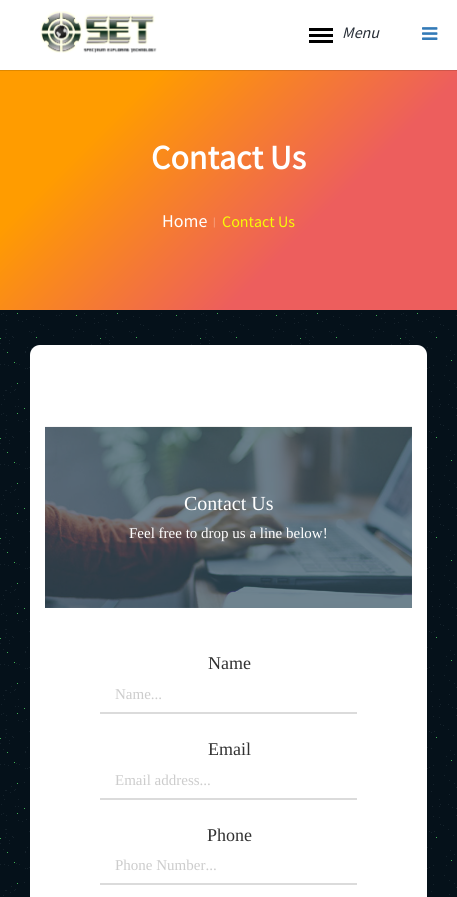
#include <cairo.h>
#include <math.h>
#include <stddef.h>

static cairo_t *ctx;

static void use_color(int r, int g, int b) {
    cairo_set_source_rgb(ctx, r / 255.0, g / 255.0, b / 255.0);
}

static void round_rect(double x, double y, double w, double h, double r) {
    cairo_new_sub_path(ctx);
    cairo_arc(ctx, x + w - r, y + h - r, r, 0, M_PI / 2);
    cairo_arc(ctx, x + r, y + h - r, r, M_PI / 2, M_PI);
    cairo_arc(ctx, x + r, y + r, r, M_PI, 1.5 * M_PI);
    cairo_arc(ctx, x + w - r, y + r, r, 1.5 * M_PI, 2 * M_PI);
    cairo_close_path(ctx);
}

static void picture(const char *path, double x, double y, double w, double h) {
    cairo_surface_t *image = cairo_image_surface_create_from_png(path);
    cairo_save(ctx);
    cairo_set_source_surface(ctx, image, x, y);
    cairo_rectangle(ctx, x, y, w, h);
    cairo_fill(ctx);
    cairo_restore(ctx);
    cairo_surface_destroy(image);
}

int main(void) {
    cairo_surface_t *surface = cairo_image_surface_create(CAIRO_FORMAT_RGB24, 457, 897);
    ctx = cairo_create(surface);
    cairo_font_options_t *options = cairo_font_options_create();
    cairo_font_options_set_hint_metrics(options, CAIRO_HINT_METRICS_OFF);
    cairo_font_options_set_hint_style(options, CAIRO_HINT_STYLE_NONE);
    cairo_set_font_options(ctx, options);
    cairo_set_miter_limit(ctx, 4);
    cairo_pattern_t *gradient;
    use_color(255, 255, 255);
    cairo_paint(ctx);
    picture("img1.png", 40, 11, 117, 42);
    use_color(0, 0, 0);
    cairo_rectangle(ctx, 309, 28, 24, 3);
    cairo_fill(ctx);
    cairo_select_font_face(ctx, "Source Sans Pro", CAIRO_FONT_SLANT_ITALIC, CAIRO_FONT_WEIGHT_NORMAL);
    cairo_set_font_size(ctx, 16);
    use_color(41, 47, 56);
    cairo_move_to(ctx, 342, 38);
    cairo_show_text(ctx, "Menu");
    use_color(0, 0, 0);
    cairo_rectangle(ctx, 309, 34, 24, 3);
    cairo_fill(ctx);
    cairo_rectangle(ctx, 309, 40, 24, 3);
    cairo_fill(ctx);
    picture("img2.png", 422, 27, 16, 13);
    gradient = cairo_pattern_create_linear(37, -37, 420, 347);
    cairo_pattern_add_color_stop_rgba(gradient, 0.3, 1, 0.612, 0, 1);
    cairo_pattern_add_color_stop_rgba(gradient, 0.7, 0.929, 0.369, 0.365, 1);
    cairo_set_source(ctx, gradient);
    cairo_pattern_destroy(gradient);
    cairo_rectangle(ctx, 0, 71, 457, 239);
    cairo_fill(ctx);
    gradient = cairo_pattern_create_linear(37, -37, 420, 347);
    cairo_pattern_add_color_stop_rgba(gradient, 0.3, 0.871, 0.533, 0, 1);
    cairo_pattern_add_color_stop_rgba(gradient, 0.7, 0.808, 0.322, 0.318, 1);
    cairo_set_source(ctx, gradient);
    cairo_pattern_destroy(gradient);
    cairo_rectangle(ctx, 0, 70, 457, 1);
    cairo_fill(ctx);
    cairo_select_font_face(ctx, "Source Sans Pro", CAIRO_FONT_SLANT_NORMAL, CAIRO_FONT_WEIGHT_BOLD);
    cairo_set_font_size(ctx, 34);
    use_color(255, 255, 255);
    cairo_move_to(ctx, 151, 169);
    cairo_show_text(ctx, "Contact Us");
    cairo_select_font_face(ctx, "Source Sans Pro", CAIRO_FONT_SLANT_NORMAL, CAIRO_FONT_WEIGHT_NORMAL);
    cairo_set_font_size(ctx, 18);
    cairo_move_to(ctx, 162, 227);
    cairo_show_text(ctx, "Home");
    cairo_set_font_size(ctx, 10);
    use_color(249, 185, 159);
    cairo_move_to(ctx, 213, 225);
    cairo_show_text(ctx, "|");
    cairo_set_font_size(ctx, 16);
    use_color(246, 252, 5);
    cairo_move_to(ctx, 222, 227);
    cairo_show_text(ctx, "Contact Us");
    picture("img3.png", 0, 310, 457, 587);
    use_color(255, 255, 255);
    round_rect(30, 345, 397, 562, 10);
    cairo_fill(ctx);
    picture("img4.png", 45, 426, 367, 182);
    cairo_set_source_rgba(ctx, 0.212, 0.329, 0.388, 0.7);
    cairo_rectangle(ctx, 45, 427, 367, 181);
    cairo_fill(ctx);
    cairo_select_font_face(ctx, "Liberation Serif", CAIRO_FONT_SLANT_NORMAL, CAIRO_FONT_WEIGHT_NORMAL);
    cairo_set_font_size(ctx, 20);
    use_color(255, 255, 255);
    cairo_move_to(ctx, 184, 510);
    cairo_show_text(ctx, "Contact Us");
    cairo_set_font_size(ctx, 15);
    cairo_move_to(ctx, 129, 538);
    cairo_show_text(ctx, "Feel free to drop us a line below!");
    use_color(219, 219, 219);
    cairo_rectangle(ctx, 100, 712, 257, 2);
    cairo_fill(ctx);
    cairo_set_font_size(ctx, 18);
    use_color(49, 49, 49);
    cairo_move_to(ctx, 208, 669);
    cairo_show_text(ctx, "Name");
    cairo_set_font_size(ctx, 15);
    use_color(204, 204, 204);
    cairo_move_to(ctx, 115, 699);
    cairo_show_text(ctx, "Name...");
    use_color(219, 219, 219);
    cairo_rectangle(ctx, 100, 798, 257, 2);
    cairo_fill(ctx);
    cairo_set_font_size(ctx, 18);
    use_color(49, 49, 49);
    cairo_move_to(ctx, 208, 755);
    cairo_show_text(ctx, "Email");
    cairo_set_font_size(ctx, 15);
    use_color(204, 204, 204);
    cairo_move_to(ctx, 115, 785);
    cairo_show_text(ctx, "Email address...");
    use_color(219, 219, 219);
    cairo_rectangle(ctx, 100, 883, 257, 2);
    cairo_fill(ctx);
    cairo_set_font_size(ctx, 18);
    use_color(49, 49, 49);
    cairo_move_to(ctx, 207, 841);
    cairo_show_text(ctx, "Phone");
    cairo_set_font_size(ctx, 15);
    use_color(204, 204, 204);
    cairo_move_to(ctx, 115, 870);
    cairo_show_text(ctx, "Phone Number...");
    cairo_surface_write_to_png(surface, "result.png");
    cairo_font_options_destroy(options);
    cairo_destroy(ctx);
    cairo_surface_destroy(surface);
    return 0;
}
